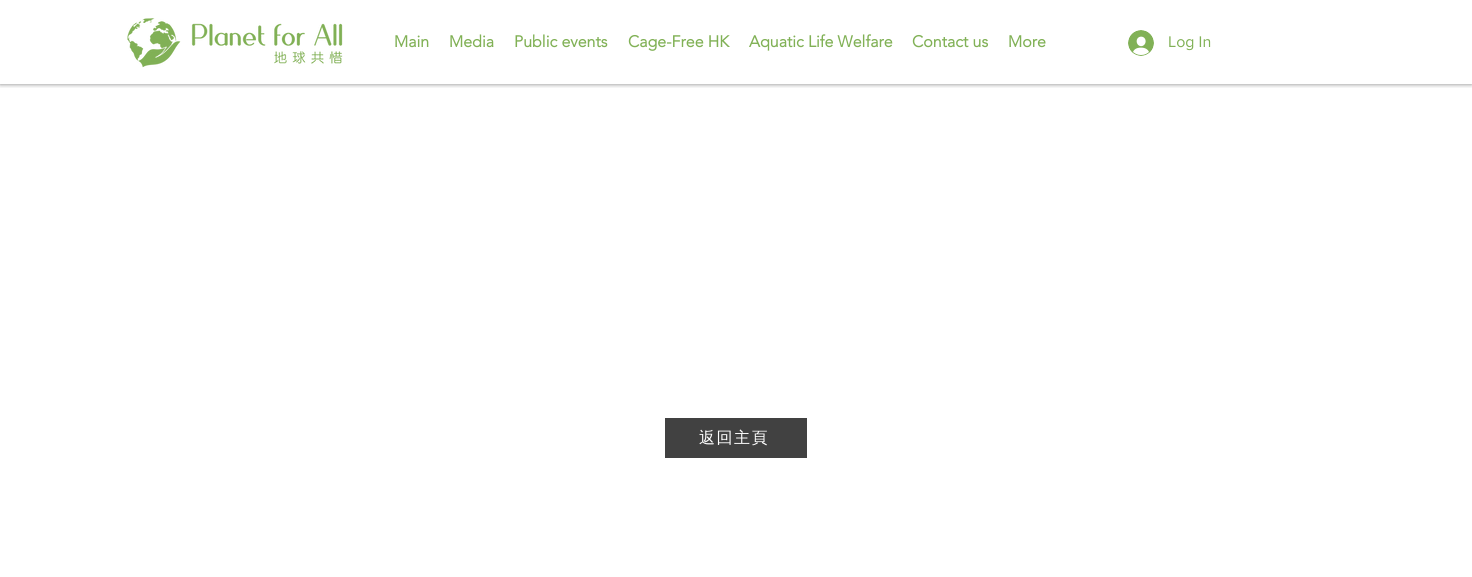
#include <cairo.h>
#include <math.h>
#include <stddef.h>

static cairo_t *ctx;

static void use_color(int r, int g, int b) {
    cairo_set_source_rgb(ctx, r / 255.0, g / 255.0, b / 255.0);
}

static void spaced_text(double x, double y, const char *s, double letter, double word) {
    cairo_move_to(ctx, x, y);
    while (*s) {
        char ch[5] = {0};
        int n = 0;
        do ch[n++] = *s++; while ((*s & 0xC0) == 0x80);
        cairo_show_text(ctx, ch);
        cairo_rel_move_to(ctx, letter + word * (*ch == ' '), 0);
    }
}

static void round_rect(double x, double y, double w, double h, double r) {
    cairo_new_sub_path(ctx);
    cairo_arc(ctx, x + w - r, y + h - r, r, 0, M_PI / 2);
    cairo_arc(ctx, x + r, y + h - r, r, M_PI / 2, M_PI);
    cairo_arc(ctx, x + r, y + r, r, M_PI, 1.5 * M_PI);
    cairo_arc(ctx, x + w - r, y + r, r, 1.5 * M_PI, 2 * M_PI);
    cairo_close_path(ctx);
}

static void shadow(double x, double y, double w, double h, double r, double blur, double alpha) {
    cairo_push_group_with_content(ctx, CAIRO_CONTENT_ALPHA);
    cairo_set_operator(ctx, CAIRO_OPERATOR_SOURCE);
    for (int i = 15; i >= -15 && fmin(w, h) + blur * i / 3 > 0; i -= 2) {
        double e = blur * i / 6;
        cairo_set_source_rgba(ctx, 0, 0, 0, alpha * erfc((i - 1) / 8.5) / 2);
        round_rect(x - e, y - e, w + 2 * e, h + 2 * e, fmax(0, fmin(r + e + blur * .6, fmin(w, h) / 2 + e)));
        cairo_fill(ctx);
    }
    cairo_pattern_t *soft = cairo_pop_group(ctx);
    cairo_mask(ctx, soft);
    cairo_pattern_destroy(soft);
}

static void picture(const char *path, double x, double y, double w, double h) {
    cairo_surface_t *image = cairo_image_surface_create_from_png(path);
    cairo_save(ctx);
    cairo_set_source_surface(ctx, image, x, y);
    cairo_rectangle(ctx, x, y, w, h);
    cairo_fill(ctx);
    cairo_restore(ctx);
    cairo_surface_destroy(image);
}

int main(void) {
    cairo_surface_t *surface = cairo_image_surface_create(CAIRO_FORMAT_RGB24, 1472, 577);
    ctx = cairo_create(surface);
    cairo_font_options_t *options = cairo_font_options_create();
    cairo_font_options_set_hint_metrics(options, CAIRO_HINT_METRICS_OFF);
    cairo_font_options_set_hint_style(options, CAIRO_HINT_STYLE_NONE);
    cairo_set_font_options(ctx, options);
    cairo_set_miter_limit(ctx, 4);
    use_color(255, 255, 255);
    cairo_paint(ctx);
    cairo_save(ctx);
    cairo_rectangle(ctx, 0, 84, 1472, 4);
    cairo_clip(ctx);
    use_color(0, 0, 0);
    shadow(0, 0, 1472, 84, 0, 2.5, 0.5);
    cairo_restore(ctx);
    cairo_select_font_face(ctx, "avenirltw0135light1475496", CAIRO_FONT_SLANT_NORMAL, CAIRO_FONT_WEIGHT_BOLD);
    cairo_set_font_size(ctx, 16);
    use_color(129, 177, 86);
    cairo_move_to(ctx, 394, 47);
    cairo_show_text(ctx, "Main");
    cairo_move_to(ctx, 449, 47);
    cairo_show_text(ctx, "Media");
    cairo_move_to(ctx, 514, 47);
    cairo_show_text(ctx, "Public events");
    cairo_move_to(ctx, 628, 47);
    cairo_show_text(ctx, "Cage-Free HK");
    cairo_move_to(ctx, 749, 47);
    cairo_show_text(ctx, "Aquatic Life Welfare");
    cairo_move_to(ctx, 912, 47);
    cairo_show_text(ctx, "Contact us");
    cairo_move_to(ctx, 1008, 47);
    cairo_show_text(ctx, "More");
    picture("img1.png", 127, 18, 216, 50);
    picture("img2.png", 1128, 30, 26, 26);
    cairo_select_font_face(ctx, "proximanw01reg", CAIRO_FONT_SLANT_NORMAL, CAIRO_FONT_WEIGHT_NORMAL);
    cairo_move_to(ctx, 1168, 47);
    cairo_show_text(ctx, "Log In");
    use_color(65, 65, 65);
    cairo_rectangle(ctx, 665, 418, 142, 40);
    cairo_fill(ctx);
    cairo_select_font_face(ctx, "WenQuanYi Zen Hei Medium", CAIRO_FONT_SLANT_NORMAL, CAIRO_FONT_WEIGHT_NORMAL);
    use_color(255, 255, 255);
    spaced_text(699, 443, "返回主頁", 1.5, 0);
    cairo_surface_write_to_png(surface, "result.png");
    cairo_font_options_destroy(options);
    cairo_destroy(ctx);
    cairo_surface_destroy(surface);
    return 0;
}
